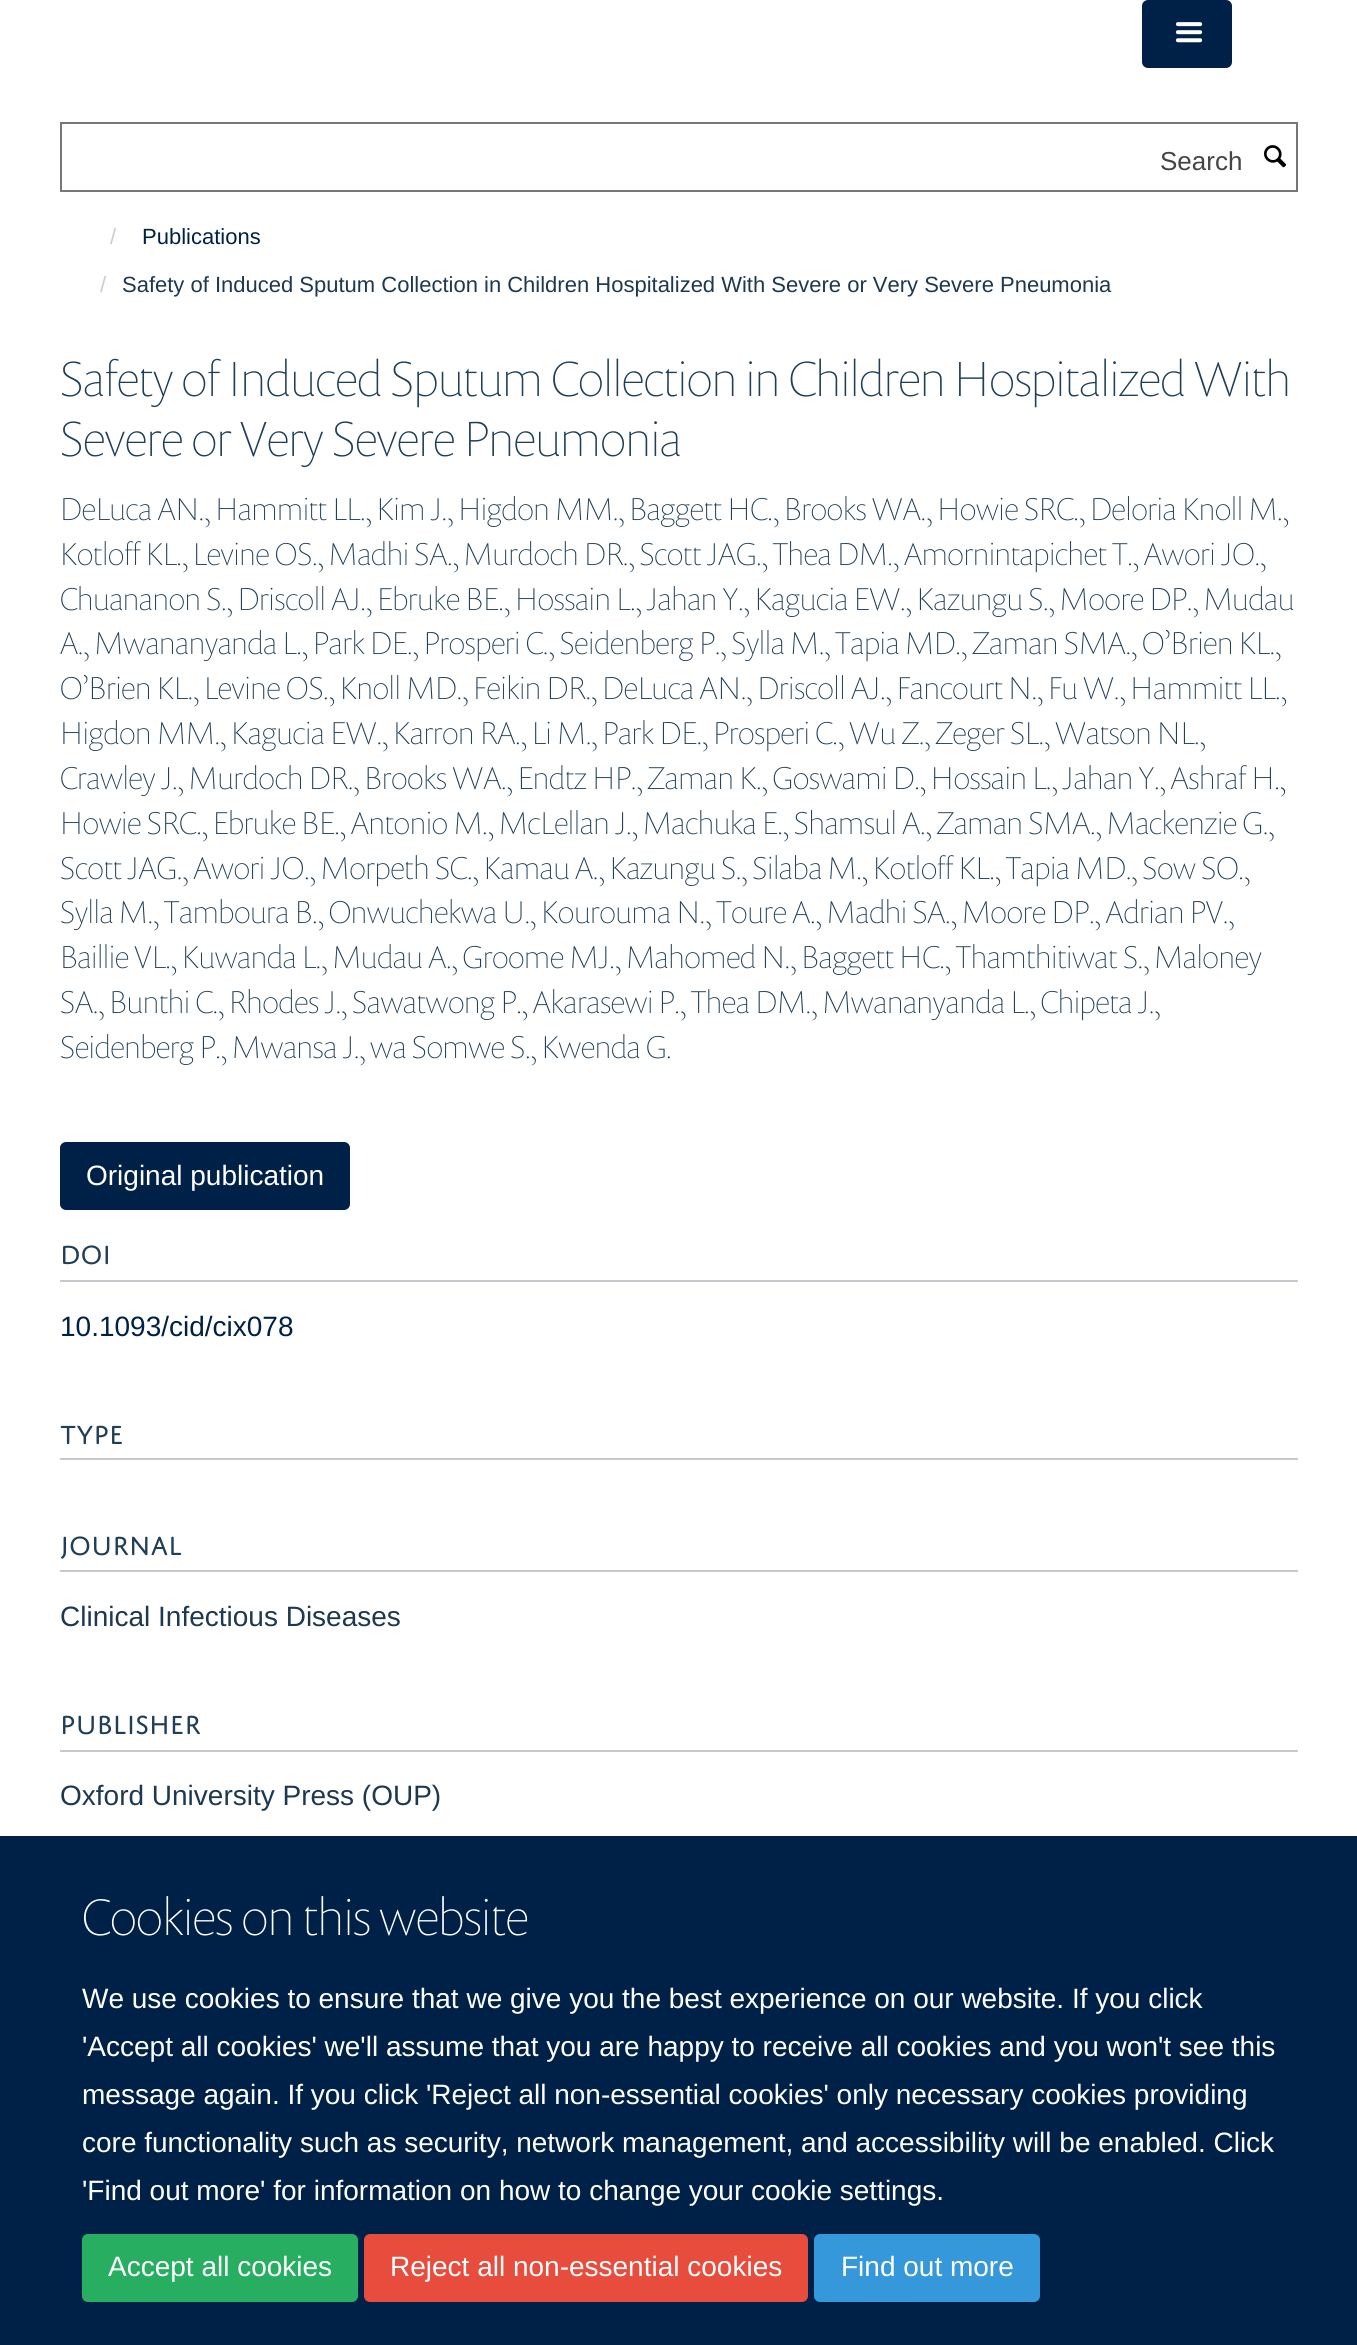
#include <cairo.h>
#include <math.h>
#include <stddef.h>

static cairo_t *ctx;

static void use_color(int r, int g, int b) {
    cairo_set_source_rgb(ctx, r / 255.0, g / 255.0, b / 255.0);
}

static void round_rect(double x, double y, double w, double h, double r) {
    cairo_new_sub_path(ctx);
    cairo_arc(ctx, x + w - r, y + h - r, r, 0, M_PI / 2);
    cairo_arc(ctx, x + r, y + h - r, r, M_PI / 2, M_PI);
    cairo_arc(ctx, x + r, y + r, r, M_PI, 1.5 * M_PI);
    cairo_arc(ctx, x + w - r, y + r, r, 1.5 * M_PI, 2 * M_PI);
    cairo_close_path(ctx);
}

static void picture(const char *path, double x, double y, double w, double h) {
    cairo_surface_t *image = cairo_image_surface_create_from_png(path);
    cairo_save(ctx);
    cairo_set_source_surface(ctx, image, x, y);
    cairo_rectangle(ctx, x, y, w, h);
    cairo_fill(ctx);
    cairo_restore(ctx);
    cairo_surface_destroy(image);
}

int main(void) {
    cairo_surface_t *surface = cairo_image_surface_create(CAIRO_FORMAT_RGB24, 1357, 2345);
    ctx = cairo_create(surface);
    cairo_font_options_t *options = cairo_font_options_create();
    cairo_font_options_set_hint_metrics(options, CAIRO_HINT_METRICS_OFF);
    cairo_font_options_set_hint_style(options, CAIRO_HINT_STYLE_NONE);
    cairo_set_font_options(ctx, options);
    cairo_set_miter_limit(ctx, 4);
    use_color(255, 255, 255);
    cairo_paint(ctx);
    use_color(0, 33, 71);
    round_rect(1143, 1, 88, 66, 5);
    cairo_fill_preserve(ctx);
    cairo_stroke(ctx);
    picture("img1.png", 1175, 22, 28, 21);
    cairo_rectangle(ctx, 61, 123, 1236, 68);
    use_color(119, 119, 119);
    cairo_stroke(ctx);
    cairo_select_font_face(ctx, "Liberation Sans", CAIRO_FONT_SLANT_NORMAL, CAIRO_FONT_WEIGHT_NORMAL);
    cairo_set_font_size(ctx, 26);
    use_color(68, 68, 68);
    cairo_move_to(ctx, 1160, 170);
    cairo_show_text(ctx, "Search");
    picture("img2.png", 1264, 145, 23, 23);
    cairo_set_font_size(ctx, 22);
    use_color(204, 204, 204);
    cairo_move_to(ctx, 110, 244);
    cairo_show_text(ctx, "/");
    use_color(0, 33, 71);
    cairo_move_to(ctx, 142, 244);
    cairo_show_text(ctx, "Publications");
    use_color(204, 204, 204);
    cairo_move_to(ctx, 100, 292);
    cairo_show_text(ctx, "/");
    use_color(29, 56, 80);
    cairo_move_to(ctx, 122, 292);
    cairo_show_text(ctx, "Safety of Induced Sputum Collection in Children Hospitalized With Severe or Very Severe Pneumonia");
    cairo_select_font_face(ctx, "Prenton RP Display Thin", CAIRO_FONT_SLANT_NORMAL, CAIRO_FONT_WEIGHT_NORMAL);
    cairo_set_font_size(ctx, 50);
    use_color(32, 62, 88);
    cairo_move_to(ctx, 60, 396);
    cairo_show_text(ctx, "Safety of Induced Sputum Collection in Children Hospitalized With");
    cairo_move_to(ctx, 60, 456);
    cairo_show_text(ctx, "Severe or Very Severe Pneumonia");
    cairo_set_font_size(ctx, 32);
    cairo_move_to(ctx, 60, 520);
    cairo_show_text(ctx, "DeLuca AN., Hammitt LL., Kim J., Higdon MM., Baggett HC., Brooks WA., Howie SRC., Deloria Knoll M.,");
    cairo_move_to(ctx, 60, 565);
    cairo_show_text(ctx, "Kotloff KL., Levine OS., Madhi SA., Murdoch DR., Scott JAG., Thea DM., Amornintapichet T., Awori JO.,");
    cairo_move_to(ctx, 60, 610);
    cairo_show_text(ctx, "Chuananon S., Driscoll AJ., Ebruke BE., Hossain L., Jahan Y., Kagucia EW., Kazungu S., Moore DP., Mudau");
    cairo_move_to(ctx, 60, 654);
    cairo_show_text(ctx, "A., Mwananyanda L., Park DE., Prosperi C., Seidenberg P., Sylla M., Tapia MD., Zaman SMA., O’Brien KL.,");
    cairo_move_to(ctx, 60, 699);
    cairo_show_text(ctx, "O’Brien KL., Levine OS., Knoll MD., Feikin DR., DeLuca AN., Driscoll AJ., Fancourt N., Fu W., Hammitt LL.,");
    cairo_move_to(ctx, 60, 744);
    cairo_show_text(ctx, "Higdon MM., Kagucia EW., Karron RA., Li M., Park DE., Prosperi C., Wu Z., Zeger SL., Watson NL.,");
    cairo_move_to(ctx, 60, 789);
    cairo_show_text(ctx, "Crawley J., Murdoch DR., Brooks WA., Endtz HP., Zaman K., Goswami D., Hossain L., Jahan Y., Ashraf H.,");
    cairo_move_to(ctx, 60, 834);
    cairo_show_text(ctx, "Howie SRC., Ebruke BE., Antonio M., McLellan J., Machuka E., Shamsul A., Zaman SMA., Mackenzie G.,");
    cairo_move_to(ctx, 60, 879);
    cairo_show_text(ctx, "Scott JAG., Awori JO., Morpeth SC., Kamau A., Kazungu S., Silaba M., Kotloff KL., Tapia MD., Sow SO.,");
    cairo_move_to(ctx, 60, 923);
    cairo_show_text(ctx, "Sylla M., Tamboura B., Onwuchekwa U., Kourouma N., Toure A., Madhi SA., Moore DP., Adrian PV.,");
    cairo_move_to(ctx, 60, 968);
    cairo_show_text(ctx, "Baillie VL., Kuwanda L., Mudau A., Groome MJ., Mahomed N., Baggett HC., Thamthitiwat S., Maloney");
    cairo_move_to(ctx, 60, 1013);
    cairo_show_text(ctx, "SA., Bunthi C., Rhodes J., Sawatwong P., Akarasewi P., Thea DM., Mwananyanda L., Chipeta J.,");
    cairo_move_to(ctx, 60, 1058);
    cairo_show_text(ctx, "Seidenberg P., Mwansa J., wa Somwe S., Kwenda G.");
    use_color(0, 33, 71);
    round_rect(61, 1143, 288, 66, 5);
    cairo_fill_preserve(ctx);
    cairo_stroke(ctx);
    cairo_select_font_face(ctx, "Liberation Sans", CAIRO_FONT_SLANT_NORMAL, CAIRO_FONT_WEIGHT_NORMAL);
    cairo_set_font_size(ctx, 28);
    use_color(255, 255, 255);
    cairo_move_to(ctx, 86, 1185);
    cairo_show_text(ctx, "Original publication");
    use_color(198, 202, 207);
    cairo_rectangle(ctx, 60, 1280, 1238, 2);
    cairo_fill(ctx);
    cairo_select_font_face(ctx, "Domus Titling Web", CAIRO_FONT_SLANT_NORMAL, CAIRO_FONT_WEIGHT_NORMAL);
    use_color(32, 62, 88);
    cairo_move_to(ctx, 60, 1264);
    cairo_show_text(ctx, "DOI");
    cairo_select_font_face(ctx, "Liberation Sans", CAIRO_FONT_SLANT_NORMAL, CAIRO_FONT_WEIGHT_NORMAL);
    use_color(0, 33, 71);
    cairo_move_to(ctx, 60, 1336);
    cairo_show_text(ctx, "10.1093/cid/cix078");
    use_color(198, 202, 207);
    cairo_rectangle(ctx, 60, 1458, 1238, 2);
    cairo_fill(ctx);
    cairo_select_font_face(ctx, "Domus Titling Web", CAIRO_FONT_SLANT_NORMAL, CAIRO_FONT_WEIGHT_NORMAL);
    use_color(32, 62, 88);
    cairo_move_to(ctx, 60, 1444);
    cairo_show_text(ctx, "TYPE");
    use_color(198, 202, 207);
    cairo_rectangle(ctx, 60, 1570, 1238, 2);
    cairo_fill(ctx);
    use_color(32, 62, 88);
    cairo_move_to(ctx, 60, 1555);
    cairo_show_text(ctx, "JOURNAL");
    cairo_select_font_face(ctx, "Liberation Sans", CAIRO_FONT_SLANT_NORMAL, CAIRO_FONT_WEIGHT_NORMAL);
    use_color(29, 56, 80);
    cairo_move_to(ctx, 60, 1626);
    cairo_show_text(ctx, "Clinical Infectious Diseases");
    use_color(198, 202, 207);
    cairo_rectangle(ctx, 60, 1750, 1238, 2);
    cairo_fill(ctx);
    cairo_select_font_face(ctx, "Domus Titling Web", CAIRO_FONT_SLANT_NORMAL, CAIRO_FONT_WEIGHT_NORMAL);
    use_color(32, 62, 88);
    cairo_move_to(ctx, 60, 1734);
    cairo_show_text(ctx, "PUBLISHER");
    cairo_select_font_face(ctx, "Liberation Sans", CAIRO_FONT_SLANT_NORMAL, CAIRO_FONT_WEIGHT_NORMAL);
    use_color(29, 56, 80);
    cairo_move_to(ctx, 60, 1805);
    cairo_show_text(ctx, "Oxford University Press (OUP)");
    use_color(0, 33, 71);
    cairo_rectangle(ctx, 0, 1836, 1357, 509);
    cairo_fill(ctx);
    cairo_select_font_face(ctx, "Prenton RP Display Thin", CAIRO_FONT_SLANT_NORMAL, CAIRO_FONT_WEIGHT_NORMAL);
    cairo_set_font_size(ctx, 52);
    use_color(255, 255, 255);
    cairo_move_to(ctx, 82, 1935);
    cairo_show_text(ctx, "Cookies on this website");
    cairo_select_font_face(ctx, "Liberation Sans", CAIRO_FONT_SLANT_NORMAL, CAIRO_FONT_WEIGHT_NORMAL);
    cairo_set_font_size(ctx, 28);
    cairo_move_to(ctx, 82, 2008);
    cairo_show_text(ctx, "We use cookies to ensure that we give you the best experience on our website. If you click");
    cairo_move_to(ctx, 82, 2056);
    cairo_show_text(ctx, "'Accept all cookies' we'll assume that you are happy to receive all cookies and you won't see this");
    cairo_move_to(ctx, 82, 2104);
    cairo_show_text(ctx, "message again. If you click 'Reject all non-essential cookies' only necessary cookies providing");
    cairo_move_to(ctx, 82, 2152);
    cairo_show_text(ctx, "core functionality such as security, network management, and accessibility will be enabled. Click");
    cairo_move_to(ctx, 82, 2200);
    cairo_show_text(ctx, "'Find out more' for information on how to change your cookie settings.");
    use_color(39, 174, 96);
    round_rect(83, 2235, 274, 66, 5);
    cairo_fill_preserve(ctx);
    cairo_stroke(ctx);
    use_color(255, 255, 255);
    cairo_move_to(ctx, 108, 2276);
    cairo_show_text(ctx, "Accept all cookies");
    use_color(231, 76, 60);
    round_rect(365, 2235, 442, 66, 5);
    cairo_fill_preserve(ctx);
    cairo_stroke(ctx);
    use_color(255, 255, 255);
    cairo_move_to(ctx, 390, 2276);
    cairo_show_text(ctx, "Reject all non-essential cookies");
    use_color(52, 152, 219);
    round_rect(815, 2235, 224, 66, 5);
    cairo_fill_preserve(ctx);
    cairo_stroke(ctx);
    use_color(255, 255, 255);
    cairo_move_to(ctx, 841, 2276);
    cairo_show_text(ctx, "Find out more");
    cairo_surface_write_to_png(surface, "result.png");
    cairo_font_options_destroy(options);
    cairo_destroy(ctx);
    cairo_surface_destroy(surface);
    return 0;
}
